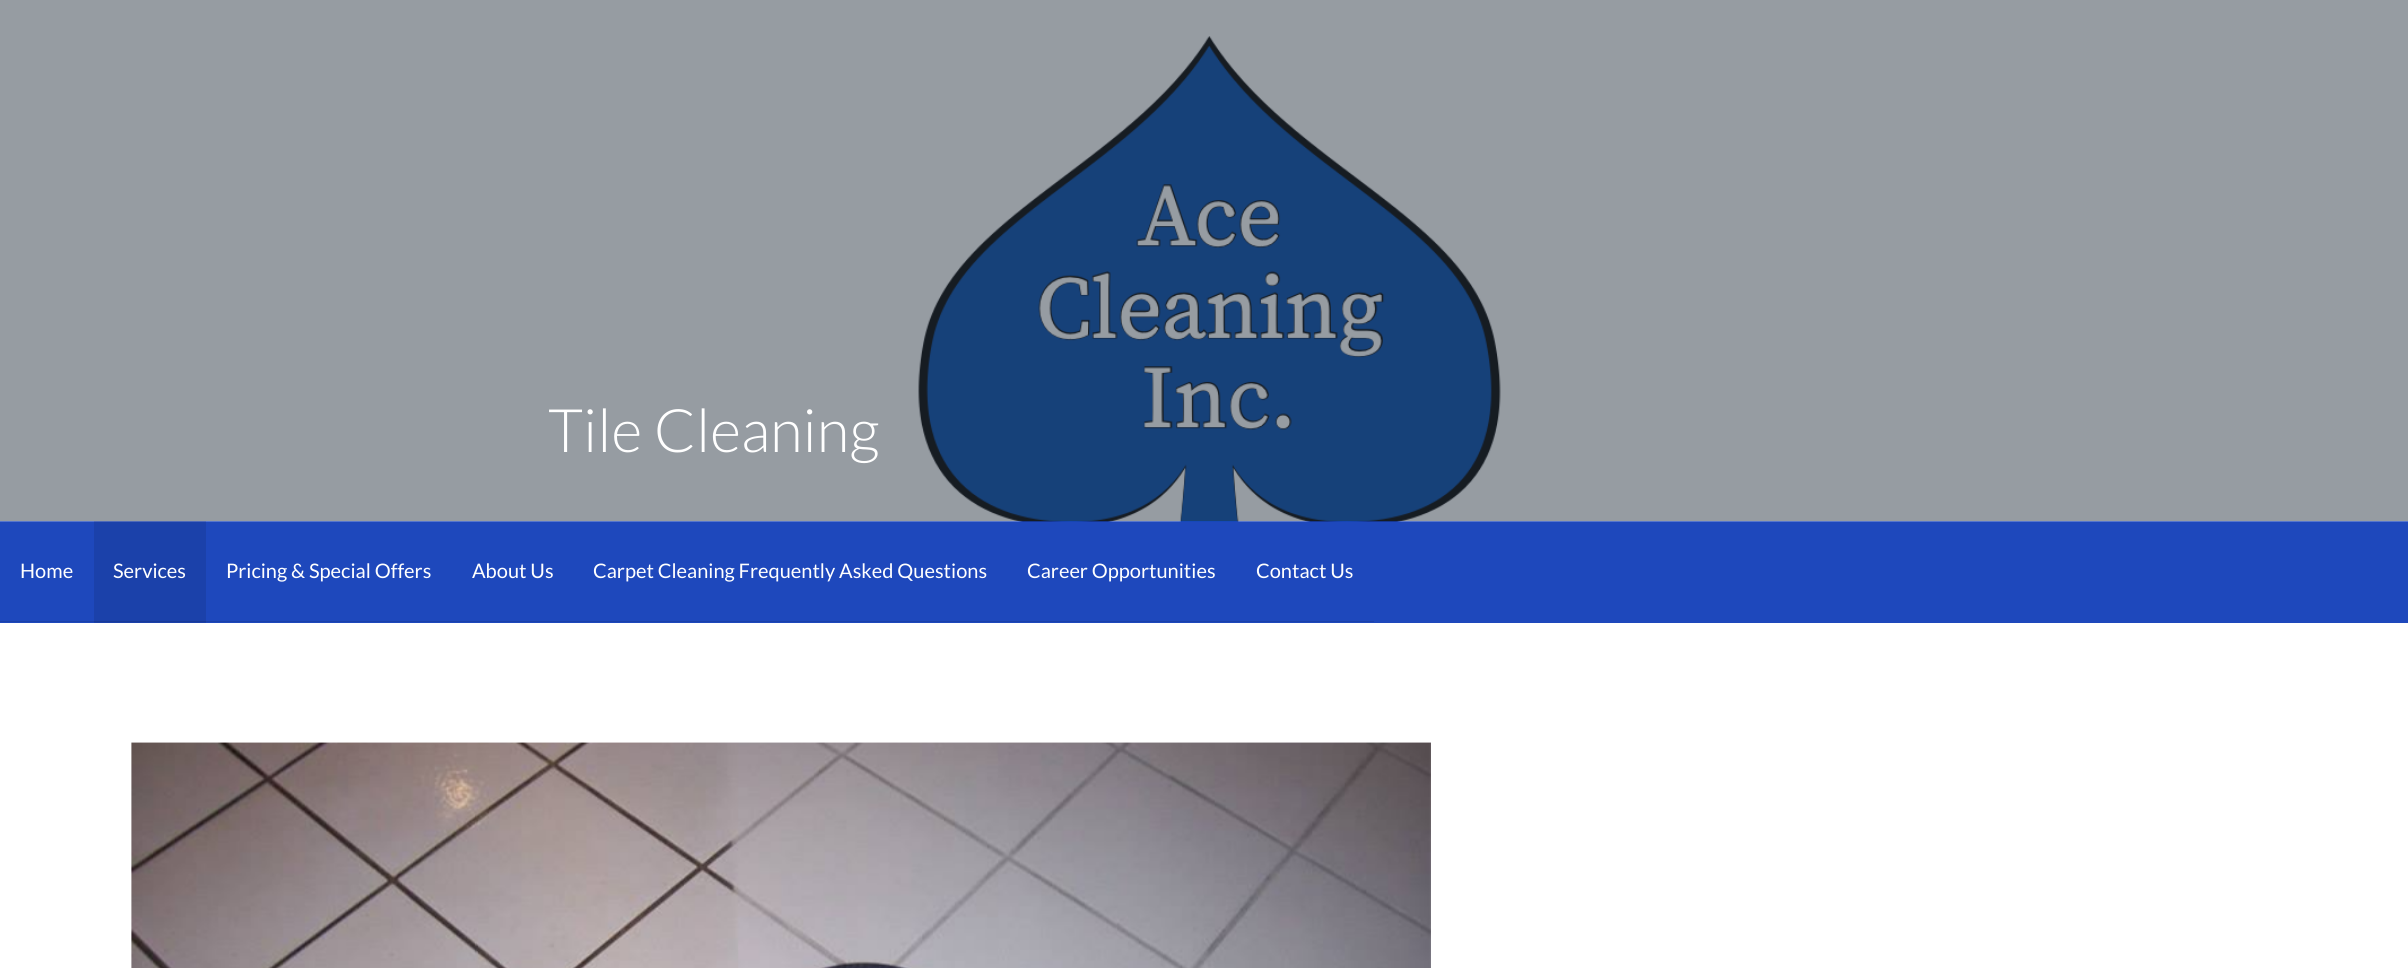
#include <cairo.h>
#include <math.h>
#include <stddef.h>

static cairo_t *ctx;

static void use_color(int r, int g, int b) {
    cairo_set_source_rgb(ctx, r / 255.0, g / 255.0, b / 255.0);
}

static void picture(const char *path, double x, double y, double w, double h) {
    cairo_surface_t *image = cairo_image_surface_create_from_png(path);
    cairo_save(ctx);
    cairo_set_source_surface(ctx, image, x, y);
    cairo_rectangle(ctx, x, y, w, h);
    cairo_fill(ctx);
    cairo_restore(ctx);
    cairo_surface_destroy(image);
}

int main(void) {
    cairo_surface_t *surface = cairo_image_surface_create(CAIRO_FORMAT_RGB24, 2408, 968);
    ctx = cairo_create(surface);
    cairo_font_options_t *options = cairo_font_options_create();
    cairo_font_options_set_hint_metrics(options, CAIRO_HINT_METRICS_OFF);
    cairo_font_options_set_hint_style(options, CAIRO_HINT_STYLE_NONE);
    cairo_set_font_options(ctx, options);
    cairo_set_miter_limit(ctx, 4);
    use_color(255, 255, 255);
    cairo_paint(ctx);
    use_color(30, 72, 188);
    cairo_rectangle(ctx, 0, 521, 2408, 102);
    cairo_fill(ctx);
    picture("img1.png", 0, 0, 2408, 522);
    cairo_select_font_face(ctx, "Lato Light", CAIRO_FONT_SLANT_NORMAL, CAIRO_FONT_WEIGHT_NORMAL);
    cairo_set_font_size(ctx, 60);
    use_color(255, 255, 255);
    cairo_move_to(ctx, 548, 452);
    cairo_show_text(ctx, "Tile Cleaning");
    use_color(27, 65, 169);
    cairo_rectangle(ctx, 0, 621, 94, 1);
    cairo_fill(ctx);
    cairo_select_font_face(ctx, "Lato", CAIRO_FONT_SLANT_NORMAL, CAIRO_FONT_WEIGHT_NORMAL);
    cairo_set_font_size(ctx, 20);
    use_color(255, 255, 255);
    cairo_move_to(ctx, 20, 578);
    cairo_show_text(ctx, "Home");
    cairo_set_source_rgba(ctx, 0, 0, 0, 0.1);
    cairo_rectangle(ctx, 94, 521, 112, 102);
    cairo_fill(ctx);
    use_color(24, 58, 152);
    cairo_rectangle(ctx, 94, 621, 112, 1);
    cairo_fill(ctx);
    use_color(255, 255, 255);
    cairo_move_to(ctx, 113, 578);
    cairo_show_text(ctx, "Services");
    use_color(27, 65, 169);
    cairo_rectangle(ctx, 206, 621, 1168, 1);
    cairo_fill(ctx);
    use_color(255, 255, 255);
    cairo_move_to(ctx, 226, 578);
    cairo_show_text(ctx, "Pricing & Special Offers");
    cairo_move_to(ctx, 472, 578);
    cairo_show_text(ctx, "About Us");
    cairo_move_to(ctx, 593, 578);
    cairo_show_text(ctx, "Carpet Cleaning Frequently Asked Questions");
    cairo_move_to(ctx, 1027, 578);
    cairo_show_text(ctx, "Career Opportunities");
    cairo_move_to(ctx, 1256, 578);
    cairo_show_text(ctx, "Contact Us");
    picture("img2.png", 131, 742, 1300, 226);
    cairo_surface_write_to_png(surface, "result.png");
    cairo_font_options_destroy(options);
    cairo_destroy(ctx);
    cairo_surface_destroy(surface);
    return 0;
}
